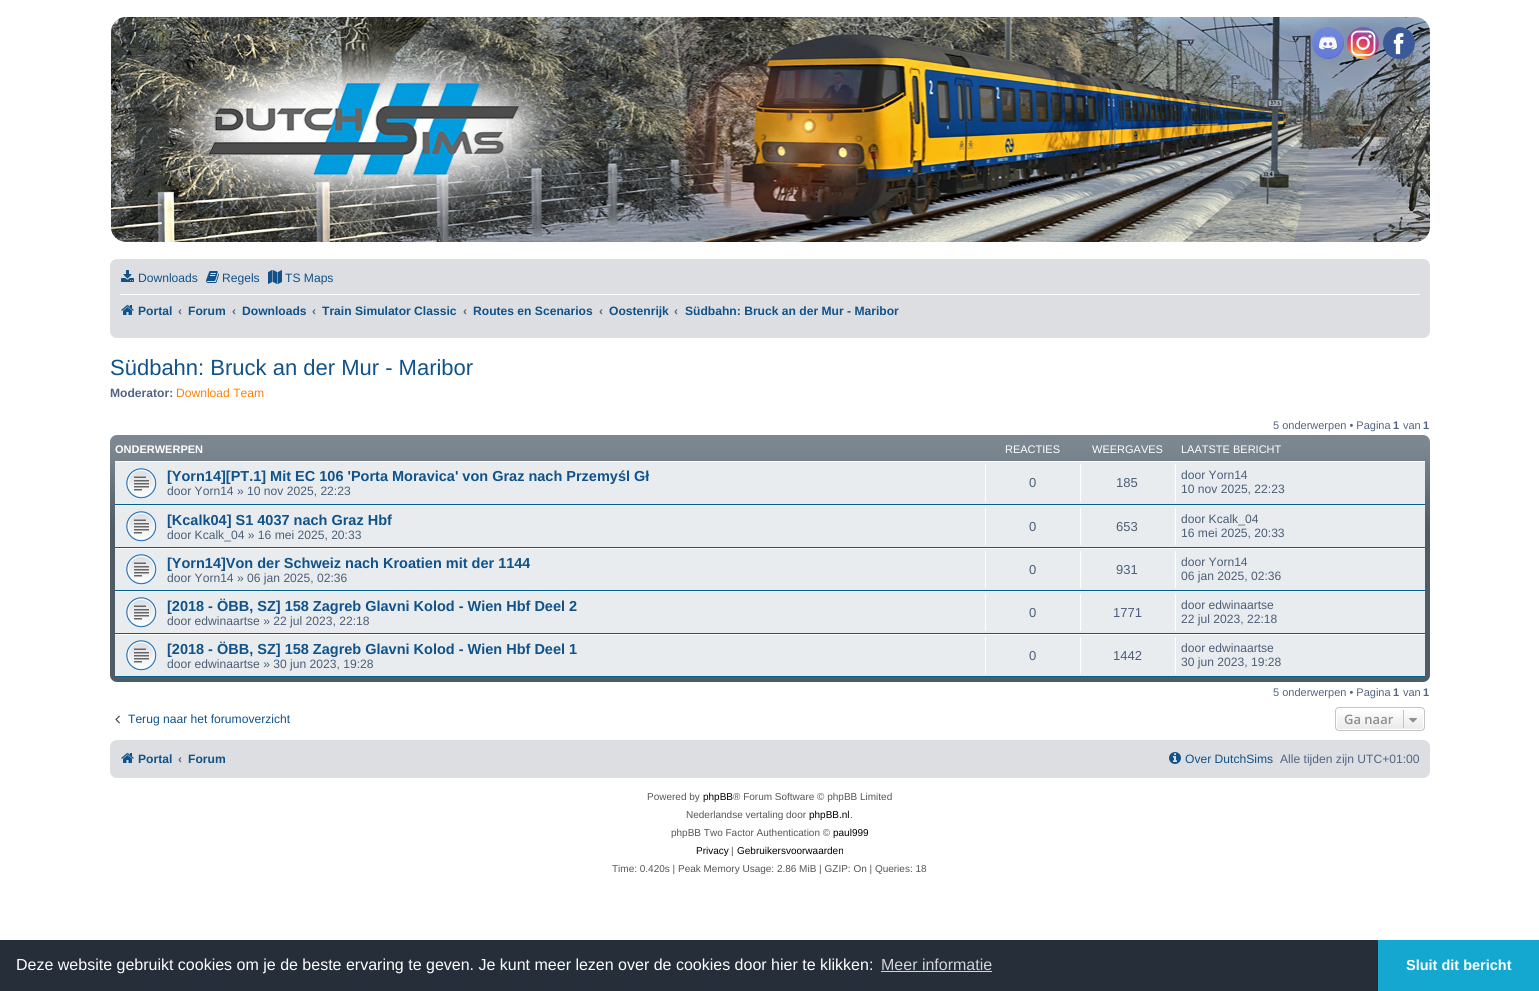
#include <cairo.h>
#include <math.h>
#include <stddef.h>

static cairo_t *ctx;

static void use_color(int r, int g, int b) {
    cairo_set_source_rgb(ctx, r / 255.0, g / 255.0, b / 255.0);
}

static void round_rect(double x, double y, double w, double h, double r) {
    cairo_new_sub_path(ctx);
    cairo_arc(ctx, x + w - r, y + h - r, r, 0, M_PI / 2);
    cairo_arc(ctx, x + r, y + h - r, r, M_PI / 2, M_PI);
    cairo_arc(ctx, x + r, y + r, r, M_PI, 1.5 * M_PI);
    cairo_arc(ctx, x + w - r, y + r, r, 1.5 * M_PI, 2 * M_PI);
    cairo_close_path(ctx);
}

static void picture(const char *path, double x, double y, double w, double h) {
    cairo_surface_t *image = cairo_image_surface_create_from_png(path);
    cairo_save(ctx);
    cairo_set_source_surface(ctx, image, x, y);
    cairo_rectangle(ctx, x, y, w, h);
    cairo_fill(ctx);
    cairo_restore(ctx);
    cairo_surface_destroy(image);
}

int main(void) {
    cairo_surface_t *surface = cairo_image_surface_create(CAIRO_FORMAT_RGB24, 1539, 991);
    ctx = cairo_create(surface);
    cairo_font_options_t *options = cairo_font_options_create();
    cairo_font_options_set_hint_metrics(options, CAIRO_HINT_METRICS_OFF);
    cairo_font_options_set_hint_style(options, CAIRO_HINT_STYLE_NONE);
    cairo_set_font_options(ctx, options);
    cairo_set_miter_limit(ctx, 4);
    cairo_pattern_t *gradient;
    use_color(255, 255, 255);
    cairo_paint(ctx);
    picture("img1.png", 111, 17, 1319, 225);
    picture("img2.png", 1312, 27, 32, 32);
    picture("img3.png", 1347, 27, 32, 32);
    picture("img4.png", 1383, 27, 32, 32);
    use_color(220, 222, 226);
    round_rect(110, 259, 1320, 79, 7);
    cairo_fill(ctx);
    picture("img5.png", 121, 270, 13, 12);
    cairo_select_font_face(ctx, "Liberation Sans", CAIRO_FONT_SLANT_NORMAL, CAIRO_FONT_WEIGHT_NORMAL);
    cairo_set_font_size(ctx, 12.1);
    use_color(16, 82, 137);
    cairo_move_to(ctx, 138, 282);
    cairo_show_text(ctx, "Downloads");
    picture("img6.png", 206, 271, 13, 12);
    cairo_move_to(ctx, 222, 282);
    cairo_show_text(ctx, "Regels");
    picture("img7.png", 268, 270, 14, 14);
    cairo_move_to(ctx, 285, 282);
    cairo_show_text(ctx, "TS Maps");
    use_color(255, 255, 255);
    cairo_rectangle(ctx, 120, 294, 1300, 1);
    cairo_fill(ctx);
    picture("img8.png", 121, 305, 13, 10);
    cairo_select_font_face(ctx, "Liberation Sans", CAIRO_FONT_SLANT_NORMAL, CAIRO_FONT_WEIGHT_BOLD);
    use_color(16, 82, 137);
    cairo_move_to(ctx, 138, 315);
    cairo_show_text(ctx, "Portal");
    use_color(83, 100, 130);
    cairo_move_to(ctx, 178, 315);
    cairo_show_text(ctx, "‹");
    use_color(16, 82, 137);
    cairo_move_to(ctx, 188, 315);
    cairo_show_text(ctx, "Forum");
    use_color(83, 100, 130);
    cairo_move_to(ctx, 232, 315);
    cairo_show_text(ctx, "‹");
    use_color(16, 82, 137);
    cairo_move_to(ctx, 242, 315);
    cairo_show_text(ctx, "Downloads");
    use_color(83, 100, 130);
    cairo_move_to(ctx, 312, 315);
    cairo_show_text(ctx, "‹");
    use_color(16, 82, 137);
    cairo_move_to(ctx, 322, 315);
    cairo_show_text(ctx, "Train Simulator Classic");
    use_color(83, 100, 130);
    cairo_move_to(ctx, 463, 315);
    cairo_show_text(ctx, "‹");
    use_color(16, 82, 137);
    cairo_move_to(ctx, 473, 315);
    cairo_show_text(ctx, "Routes en Scenarios");
    use_color(83, 100, 130);
    cairo_move_to(ctx, 599, 315);
    cairo_show_text(ctx, "‹");
    use_color(16, 82, 137);
    cairo_move_to(ctx, 609, 315);
    cairo_show_text(ctx, "Oostenrijk");
    use_color(83, 100, 130);
    cairo_move_to(ctx, 674, 315);
    cairo_show_text(ctx, "‹");
    use_color(16, 82, 137);
    cairo_move_to(ctx, 685, 315);
    cairo_show_text(ctx, "Südbahn: Bruck an der Mur - Maribor");
    cairo_select_font_face(ctx, "Liberation Sans", CAIRO_FONT_SLANT_NORMAL, CAIRO_FONT_WEIGHT_NORMAL);
    cairo_set_font_size(ctx, 22);
    cairo_move_to(ctx, 110, 375);
    cairo_show_text(ctx, "Südbahn: Bruck an der Mur - Maribor");
    cairo_select_font_face(ctx, "Liberation Sans", CAIRO_FONT_SLANT_NORMAL, CAIRO_FONT_WEIGHT_BOLD);
    cairo_set_font_size(ctx, 12.1);
    use_color(83, 100, 130);
    cairo_move_to(ctx, 110, 397);
    cairo_show_text(ctx, "Moderator:");
    cairo_select_font_face(ctx, "Liberation Sans", CAIRO_FONT_SLANT_NORMAL, CAIRO_FONT_WEIGHT_NORMAL);
    use_color(255, 128, 0);
    cairo_move_to(ctx, 176, 397);
    cairo_show_text(ctx, "Download Team");
    cairo_set_font_size(ctx, 11);
    use_color(83, 100, 130);
    cairo_move_to(ctx, 1273, 429);
    cairo_show_text(ctx, "5 onderwerpen • Pagina");
    cairo_select_font_face(ctx, "Liberation Sans", CAIRO_FONT_SLANT_NORMAL, CAIRO_FONT_WEIGHT_BOLD);
    cairo_move_to(ctx, 1393, 429);
    cairo_show_text(ctx, "1");
    cairo_select_font_face(ctx, "Liberation Sans", CAIRO_FONT_SLANT_NORMAL, CAIRO_FONT_WEIGHT_NORMAL);
    cairo_move_to(ctx, 1403, 429);
    cairo_show_text(ctx, "van");
    cairo_select_font_face(ctx, "Liberation Sans", CAIRO_FONT_SLANT_NORMAL, CAIRO_FONT_WEIGHT_BOLD);
    cairo_move_to(ctx, 1423, 429);
    cairo_show_text(ctx, "1");
    gradient = cairo_pattern_create_linear(770, 435, 770, 682);
    cairo_pattern_add_color_stop_rgba(gradient, 0, 0.486, 0.533, 0.569, 1);
    cairo_pattern_add_color_stop_rgba(gradient, 0.04, 0.486, 0.529, 0.565, 1);
    cairo_pattern_add_color_stop_rgba(gradient, 0.1, 0.463, 0.51, 0.545, 1);
    cairo_pattern_add_color_stop_rgba(gradient, 0.29, 0.357, 0.4, 0.435, 1);
    cairo_pattern_add_color_stop_rgba(gradient, 0.38, 0.314, 0.361, 0.396, 1);
    cairo_pattern_add_color_stop_rgba(gradient, 1, 0.314, 0.361, 0.396, 1);
    cairo_set_source(ctx, gradient);
    cairo_pattern_destroy(gradient);
    round_rect(110, 435, 1320, 247, 7);
    cairo_fill(ctx);
    use_color(255, 255, 255);
    cairo_move_to(ctx, 115, 453);
    cairo_show_text(ctx, "ONDERWERPEN");
    cairo_select_font_face(ctx, "Liberation Sans", CAIRO_FONT_SLANT_NORMAL, CAIRO_FONT_WEIGHT_NORMAL);
    cairo_move_to(ctx, 1005, 453);
    cairo_show_text(ctx, "REACTIES");
    cairo_move_to(ctx, 1092, 453);
    cairo_show_text(ctx, "WEERGAVES");
    cairo_move_to(ctx, 1181, 453);
    cairo_show_text(ctx, "LAATSTE BERICHT");
    use_color(232, 236, 238);
    cairo_rectangle(ctx, 115, 462, 1310, 42);
    cairo_fill(ctx);
    use_color(255, 255, 255);
    cairo_rectangle(ctx, 115, 461, 1310, 1);
    cairo_fill(ctx);
    use_color(0, 96, 143);
    cairo_rectangle(ctx, 115, 504, 1310, 1);
    cairo_fill(ctx);
    picture("img9.png", 126, 468, 31, 31);
    cairo_select_font_face(ctx, "Liberation Sans", CAIRO_FONT_SLANT_NORMAL, CAIRO_FONT_WEIGHT_BOLD);
    cairo_set_font_size(ctx, 14.5);
    use_color(16, 82, 137);
    cairo_move_to(ctx, 167, 481);
    cairo_show_text(ctx, "[Yorn14][PT.1] Mit EC 106 'Porta Moravica' von Graz nach Przemyśl Gł");
    cairo_select_font_face(ctx, "Liberation Sans", CAIRO_FONT_SLANT_NORMAL, CAIRO_FONT_WEIGHT_NORMAL);
    cairo_set_font_size(ctx, 12.1);
    use_color(76, 93, 119);
    cairo_move_to(ctx, 167, 495);
    cairo_show_text(ctx, "door Yorn14 » 10 nov 2025, 22:23");
    use_color(255, 255, 255);
    cairo_rectangle(ctx, 985, 464, 1, 38);
    cairo_fill(ctx);
    cairo_set_font_size(ctx, 13);
    use_color(76, 93, 119);
    cairo_move_to(ctx, 1029, 487);
    cairo_show_text(ctx, "0");
    use_color(255, 255, 255);
    cairo_rectangle(ctx, 1080, 464, 1, 38);
    cairo_fill(ctx);
    use_color(76, 93, 119);
    cairo_move_to(ctx, 1116, 487);
    cairo_show_text(ctx, "185");
    use_color(255, 255, 255);
    cairo_rectangle(ctx, 1175, 464, 1, 38);
    cairo_fill(ctx);
    cairo_set_font_size(ctx, 12.1);
    use_color(76, 93, 119);
    cairo_move_to(ctx, 1181, 479);
    cairo_show_text(ctx, "door Yorn14");
    cairo_move_to(ctx, 1181, 493);
    cairo_show_text(ctx, "10 nov 2025, 22:23");
    use_color(232, 236, 238);
    cairo_rectangle(ctx, 115, 506, 1310, 41);
    cairo_fill(ctx);
    use_color(255, 255, 255);
    cairo_rectangle(ctx, 115, 505, 1310, 1);
    cairo_fill(ctx);
    use_color(0, 96, 143);
    cairo_rectangle(ctx, 115, 547, 1310, 1);
    cairo_fill(ctx);
    picture("img9.png", 126, 511, 31, 31);
    cairo_select_font_face(ctx, "Liberation Sans", CAIRO_FONT_SLANT_NORMAL, CAIRO_FONT_WEIGHT_BOLD);
    cairo_set_font_size(ctx, 14.5);
    use_color(16, 82, 137);
    cairo_move_to(ctx, 167, 525);
    cairo_show_text(ctx, "[Kcalk04] S1 4037 nach Graz Hbf");
    cairo_select_font_face(ctx, "Liberation Sans", CAIRO_FONT_SLANT_NORMAL, CAIRO_FONT_WEIGHT_NORMAL);
    cairo_set_font_size(ctx, 12.1);
    use_color(76, 93, 119);
    cairo_move_to(ctx, 167, 539);
    cairo_show_text(ctx, "door Kcalk_04 » 16 mei 2025, 20:33");
    use_color(255, 255, 255);
    cairo_rectangle(ctx, 985, 508, 1, 37);
    cairo_fill(ctx);
    cairo_set_font_size(ctx, 13);
    use_color(76, 93, 119);
    cairo_move_to(ctx, 1029, 531);
    cairo_show_text(ctx, "0");
    use_color(255, 255, 255);
    cairo_rectangle(ctx, 1080, 508, 1, 37);
    cairo_fill(ctx);
    use_color(76, 93, 119);
    cairo_move_to(ctx, 1116, 531);
    cairo_show_text(ctx, "653");
    use_color(255, 255, 255);
    cairo_rectangle(ctx, 1175, 508, 1, 37);
    cairo_fill(ctx);
    cairo_set_font_size(ctx, 12.1);
    use_color(76, 93, 119);
    cairo_move_to(ctx, 1181, 523);
    cairo_show_text(ctx, "door Kcalk_04");
    cairo_move_to(ctx, 1181, 537);
    cairo_show_text(ctx, "16 mei 2025, 20:33");
    use_color(232, 236, 238);
    cairo_rectangle(ctx, 115, 549, 1310, 41);
    cairo_fill(ctx);
    use_color(255, 255, 255);
    cairo_rectangle(ctx, 115, 548, 1310, 1);
    cairo_fill(ctx);
    use_color(0, 96, 143);
    cairo_rectangle(ctx, 115, 590, 1310, 1);
    cairo_fill(ctx);
    picture("img9.png", 126, 554, 31, 31);
    cairo_select_font_face(ctx, "Liberation Sans", CAIRO_FONT_SLANT_NORMAL, CAIRO_FONT_WEIGHT_BOLD);
    cairo_set_font_size(ctx, 14.5);
    use_color(16, 82, 137);
    cairo_move_to(ctx, 167, 568);
    cairo_show_text(ctx, "[Yorn14]Von der Schweiz nach Kroatien mit der 1144");
    cairo_select_font_face(ctx, "Liberation Sans", CAIRO_FONT_SLANT_NORMAL, CAIRO_FONT_WEIGHT_NORMAL);
    cairo_set_font_size(ctx, 12.1);
    use_color(76, 93, 119);
    cairo_move_to(ctx, 167, 582);
    cairo_show_text(ctx, "door Yorn14 » 06 jan 2025, 02:36");
    use_color(255, 255, 255);
    cairo_rectangle(ctx, 985, 551, 1, 37);
    cairo_fill(ctx);
    cairo_set_font_size(ctx, 13);
    use_color(76, 93, 119);
    cairo_move_to(ctx, 1029, 574);
    cairo_show_text(ctx, "0");
    use_color(255, 255, 255);
    cairo_rectangle(ctx, 1080, 551, 1, 37);
    cairo_fill(ctx);
    use_color(76, 93, 119);
    cairo_move_to(ctx, 1116, 574);
    cairo_show_text(ctx, "931");
    use_color(255, 255, 255);
    cairo_rectangle(ctx, 1175, 551, 1, 37);
    cairo_fill(ctx);
    cairo_set_font_size(ctx, 12.1);
    use_color(76, 93, 119);
    cairo_move_to(ctx, 1181, 566);
    cairo_show_text(ctx, "door Yorn14");
    cairo_move_to(ctx, 1181, 580);
    cairo_show_text(ctx, "06 jan 2025, 02:36");
    use_color(232, 236, 238);
    cairo_rectangle(ctx, 115, 592, 1310, 41);
    cairo_fill(ctx);
    use_color(255, 255, 255);
    cairo_rectangle(ctx, 115, 591, 1310, 1);
    cairo_fill(ctx);
    use_color(0, 96, 143);
    cairo_rectangle(ctx, 115, 633, 1310, 1);
    cairo_fill(ctx);
    picture("img9.png", 126, 597, 31, 31);
    cairo_select_font_face(ctx, "Liberation Sans", CAIRO_FONT_SLANT_NORMAL, CAIRO_FONT_WEIGHT_BOLD);
    cairo_set_font_size(ctx, 14.5);
    use_color(16, 82, 137);
    cairo_move_to(ctx, 167, 611);
    cairo_show_text(ctx, "[2018 - ÖBB, SZ] 158 Zagreb Glavni Kolod - Wien Hbf Deel 2");
    cairo_select_font_face(ctx, "Liberation Sans", CAIRO_FONT_SLANT_NORMAL, CAIRO_FONT_WEIGHT_NORMAL);
    cairo_set_font_size(ctx, 12.1);
    use_color(76, 93, 119);
    cairo_move_to(ctx, 167, 625);
    cairo_show_text(ctx, "door edwinaartse » 22 jul 2023, 22:18");
    use_color(255, 255, 255);
    cairo_rectangle(ctx, 985, 594, 1, 37);
    cairo_fill(ctx);
    cairo_set_font_size(ctx, 13);
    use_color(76, 93, 119);
    cairo_move_to(ctx, 1029, 617);
    cairo_show_text(ctx, "0");
    use_color(255, 255, 255);
    cairo_rectangle(ctx, 1080, 594, 1, 37);
    cairo_fill(ctx);
    use_color(76, 93, 119);
    cairo_move_to(ctx, 1113, 617);
    cairo_show_text(ctx, "1771");
    use_color(255, 255, 255);
    cairo_rectangle(ctx, 1175, 594, 1, 37);
    cairo_fill(ctx);
    cairo_set_font_size(ctx, 12.1);
    use_color(76, 93, 119);
    cairo_move_to(ctx, 1181, 609);
    cairo_show_text(ctx, "door edwinaartse");
    cairo_move_to(ctx, 1181, 623);
    cairo_show_text(ctx, "22 jul 2023, 22:18");
    use_color(232, 236, 238);
    cairo_rectangle(ctx, 115, 635, 1310, 41);
    cairo_fill(ctx);
    use_color(255, 255, 255);
    cairo_rectangle(ctx, 115, 634, 1310, 1);
    cairo_fill(ctx);
    use_color(0, 96, 143);
    cairo_rectangle(ctx, 115, 676, 1310, 1);
    cairo_fill(ctx);
    picture("img9.png", 126, 640, 31, 31);
    cairo_select_font_face(ctx, "Liberation Sans", CAIRO_FONT_SLANT_NORMAL, CAIRO_FONT_WEIGHT_BOLD);
    cairo_set_font_size(ctx, 14.5);
    use_color(16, 82, 137);
    cairo_move_to(ctx, 167, 654);
    cairo_show_text(ctx, "[2018 - ÖBB, SZ] 158 Zagreb Glavni Kolod - Wien Hbf Deel 1");
    cairo_select_font_face(ctx, "Liberation Sans", CAIRO_FONT_SLANT_NORMAL, CAIRO_FONT_WEIGHT_NORMAL);
    cairo_set_font_size(ctx, 12.1);
    use_color(76, 93, 119);
    cairo_move_to(ctx, 167, 668);
    cairo_show_text(ctx, "door edwinaartse » 30 jun 2023, 19:28");
    use_color(255, 255, 255);
    cairo_rectangle(ctx, 985, 637, 1, 37);
    cairo_fill(ctx);
    cairo_set_font_size(ctx, 13);
    use_color(76, 93, 119);
    cairo_move_to(ctx, 1029, 660);
    cairo_show_text(ctx, "0");
    use_color(255, 255, 255);
    cairo_rectangle(ctx, 1080, 637, 1, 37);
    cairo_fill(ctx);
    use_color(76, 93, 119);
    cairo_move_to(ctx, 1113, 660);
    cairo_show_text(ctx, "1442");
    use_color(255, 255, 255);
    cairo_rectangle(ctx, 1175, 637, 1, 37);
    cairo_fill(ctx);
    cairo_set_font_size(ctx, 12.1);
    use_color(76, 93, 119);
    cairo_move_to(ctx, 1181, 652);
    cairo_show_text(ctx, "door edwinaartse");
    cairo_move_to(ctx, 1181, 666);
    cairo_show_text(ctx, "30 jun 2023, 19:28");
    cairo_set_font_size(ctx, 11);
    use_color(83, 100, 130);
    cairo_move_to(ctx, 1273, 696);
    cairo_show_text(ctx, "5 onderwerpen • Pagina");
    cairo_select_font_face(ctx, "Liberation Sans", CAIRO_FONT_SLANT_NORMAL, CAIRO_FONT_WEIGHT_BOLD);
    cairo_move_to(ctx, 1393, 696);
    cairo_show_text(ctx, "1");
    cairo_select_font_face(ctx, "Liberation Sans", CAIRO_FONT_SLANT_NORMAL, CAIRO_FONT_WEIGHT_NORMAL);
    cairo_move_to(ctx, 1403, 696);
    cairo_show_text(ctx, "van");
    cairo_select_font_face(ctx, "Liberation Sans", CAIRO_FONT_SLANT_NORMAL, CAIRO_FONT_WEIGHT_BOLD);
    cairo_move_to(ctx, 1423, 696);
    cairo_show_text(ctx, "1");
    picture("img10.png", 115, 715, 5, 9);
    cairo_select_font_face(ctx, "Liberation Sans", CAIRO_FONT_SLANT_NORMAL, CAIRO_FONT_WEIGHT_NORMAL);
    cairo_set_font_size(ctx, 12.1);
    use_color(16, 82, 137);
    cairo_move_to(ctx, 128, 723);
    cairo_show_text(ctx, "Terug naar het forumoverzicht");
    cairo_save(ctx);
    round_rect(1335, 707, 90, 24, 4);
    cairo_clip(ctx);
    gradient = cairo_pattern_create_linear(1380, 708, 1380, 730);
    cairo_pattern_add_color_stop_rgba(gradient, 0, 1, 1, 1, 1);
    cairo_pattern_add_color_stop_rgba(gradient, 1, 0.914, 0.914, 0.914, 1);
    cairo_set_source(ctx, gradient);
    cairo_pattern_destroy(gradient);
    cairo_rectangle(ctx, 1335, 708, 90, 22);
    cairo_fill(ctx);
    cairo_restore(ctx);
    round_rect(1336.5, 708.5, 87, 21, 2.5);
    use_color(255, 255, 255);
    cairo_set_line_width(ctx, 1);
    cairo_stroke(ctx);
    round_rect(1335.5, 707.5, 89, 23, 3.5);
    use_color(199, 195, 191);
    cairo_stroke(ctx);
    cairo_select_font_face(ctx, "Open Sans SemiBold", CAIRO_FONT_SLANT_NORMAL, CAIRO_FONT_WEIGHT_NORMAL);
    cairo_set_font_size(ctx, 13);
    use_color(143, 143, 143);
    cairo_move_to(ctx, 1344, 724);
    cairo_show_text(ctx, "Ga naar");
    use_color(199, 195, 191);
    cairo_rectangle(ctx, 1403, 710, 1, 18);
    cairo_fill(ctx);
    picture("img11.png", 1409, 718, 8, 5);
    use_color(220, 222, 226);
    round_rect(110, 740, 1320, 38, 7);
    cairo_fill(ctx);
    picture("img8.png", 121, 753, 13, 10);
    cairo_select_font_face(ctx, "Liberation Sans", CAIRO_FONT_SLANT_NORMAL, CAIRO_FONT_WEIGHT_BOLD);
    cairo_set_font_size(ctx, 12.1);
    use_color(16, 82, 137);
    cairo_move_to(ctx, 138, 763);
    cairo_show_text(ctx, "Portal");
    use_color(83, 100, 130);
    cairo_move_to(ctx, 178, 763);
    cairo_show_text(ctx, "‹");
    use_color(16, 82, 137);
    cairo_move_to(ctx, 188, 763);
    cairo_show_text(ctx, "Forum");
    picture("img12.png", 1169, 752, 12, 12);
    cairo_select_font_face(ctx, "Liberation Sans", CAIRO_FONT_SLANT_NORMAL, CAIRO_FONT_WEIGHT_NORMAL);
    cairo_move_to(ctx, 1185, 763);
    cairo_show_text(ctx, "Over DutchSims");
    use_color(83, 100, 130);
    cairo_move_to(ctx, 1280, 763);
    cairo_show_text(ctx, "Alle tijden zijn UTC+01:00");
    cairo_set_font_size(ctx, 10);
    use_color(85, 85, 85);
    cairo_move_to(ctx, 647, 800);
    cairo_show_text(ctx, "Powered by");
    use_color(0, 0, 0);
    cairo_move_to(ctx, 703, 800);
    cairo_show_text(ctx, "phpBB");
    use_color(85, 85, 85);
    cairo_move_to(ctx, 733, 800);
    cairo_show_text(ctx, "® Forum Software © phpBB Limited");
    cairo_move_to(ctx, 686, 818);
    cairo_show_text(ctx, "Nederlandse vertaling door");
    use_color(0, 0, 0);
    cairo_move_to(ctx, 809, 818);
    cairo_show_text(ctx, "phpBB.nl");
    use_color(85, 85, 85);
    cairo_move_to(ctx, 850, 818);
    cairo_show_text(ctx, ".");
    cairo_move_to(ctx, 671, 836);
    cairo_show_text(ctx, "phpBB Two Factor Authentication ©");
    use_color(0, 0, 0);
    cairo_move_to(ctx, 833, 836);
    cairo_show_text(ctx, "paul999");
    cairo_move_to(ctx, 696, 854);
    cairo_show_text(ctx, "Privacy");
    use_color(85, 85, 85);
    cairo_move_to(ctx, 731, 854);
    cairo_show_text(ctx, "|");
    use_color(0, 0, 0);
    cairo_move_to(ctx, 737, 854);
    cairo_show_text(ctx, "Gebruikersvoorwaarden");
    use_color(85, 85, 85);
    cairo_move_to(ctx, 612, 872);
    cairo_show_text(ctx, "Time: 0.420s | Peak Memory Usage: 2.86 MiB | GZIP: On | Queries: 18");
    use_color(37, 46, 57);
    cairo_rectangle(ctx, 0, 940, 1378, 51);
    cairo_fill(ctx);
    cairo_set_font_size(ctx, 16);
    use_color(255, 255, 255);
    cairo_move_to(ctx, 16, 970);
    cairo_show_text(ctx, "Deze website gebruikt cookies om je de beste ervaring te geven. Je kunt meer lezen over de cookies door hier te klikken:");
    use_color(211, 213, 215);
    cairo_move_to(ctx, 881, 970);
    cairo_show_text(ctx, "Meer informatie");
    cairo_rectangle(ctx, 881, 971, 111, 1);
    cairo_fill(ctx);
    use_color(20, 167, 208);
    cairo_rectangle(ctx, 1378, 940, 161, 51);
    cairo_fill(ctx);
    cairo_select_font_face(ctx, "Liberation Sans", CAIRO_FONT_SLANT_NORMAL, CAIRO_FONT_WEIGHT_BOLD);
    cairo_set_font_size(ctx, 14.5);
    use_color(255, 255, 255);
    cairo_move_to(ctx, 1406, 970);
    cairo_show_text(ctx, "Sluit dit bericht");
    cairo_surface_write_to_png(surface, "result.png");
    cairo_font_options_destroy(options);
    cairo_destroy(ctx);
    cairo_surface_destroy(surface);
    return 0;
}
